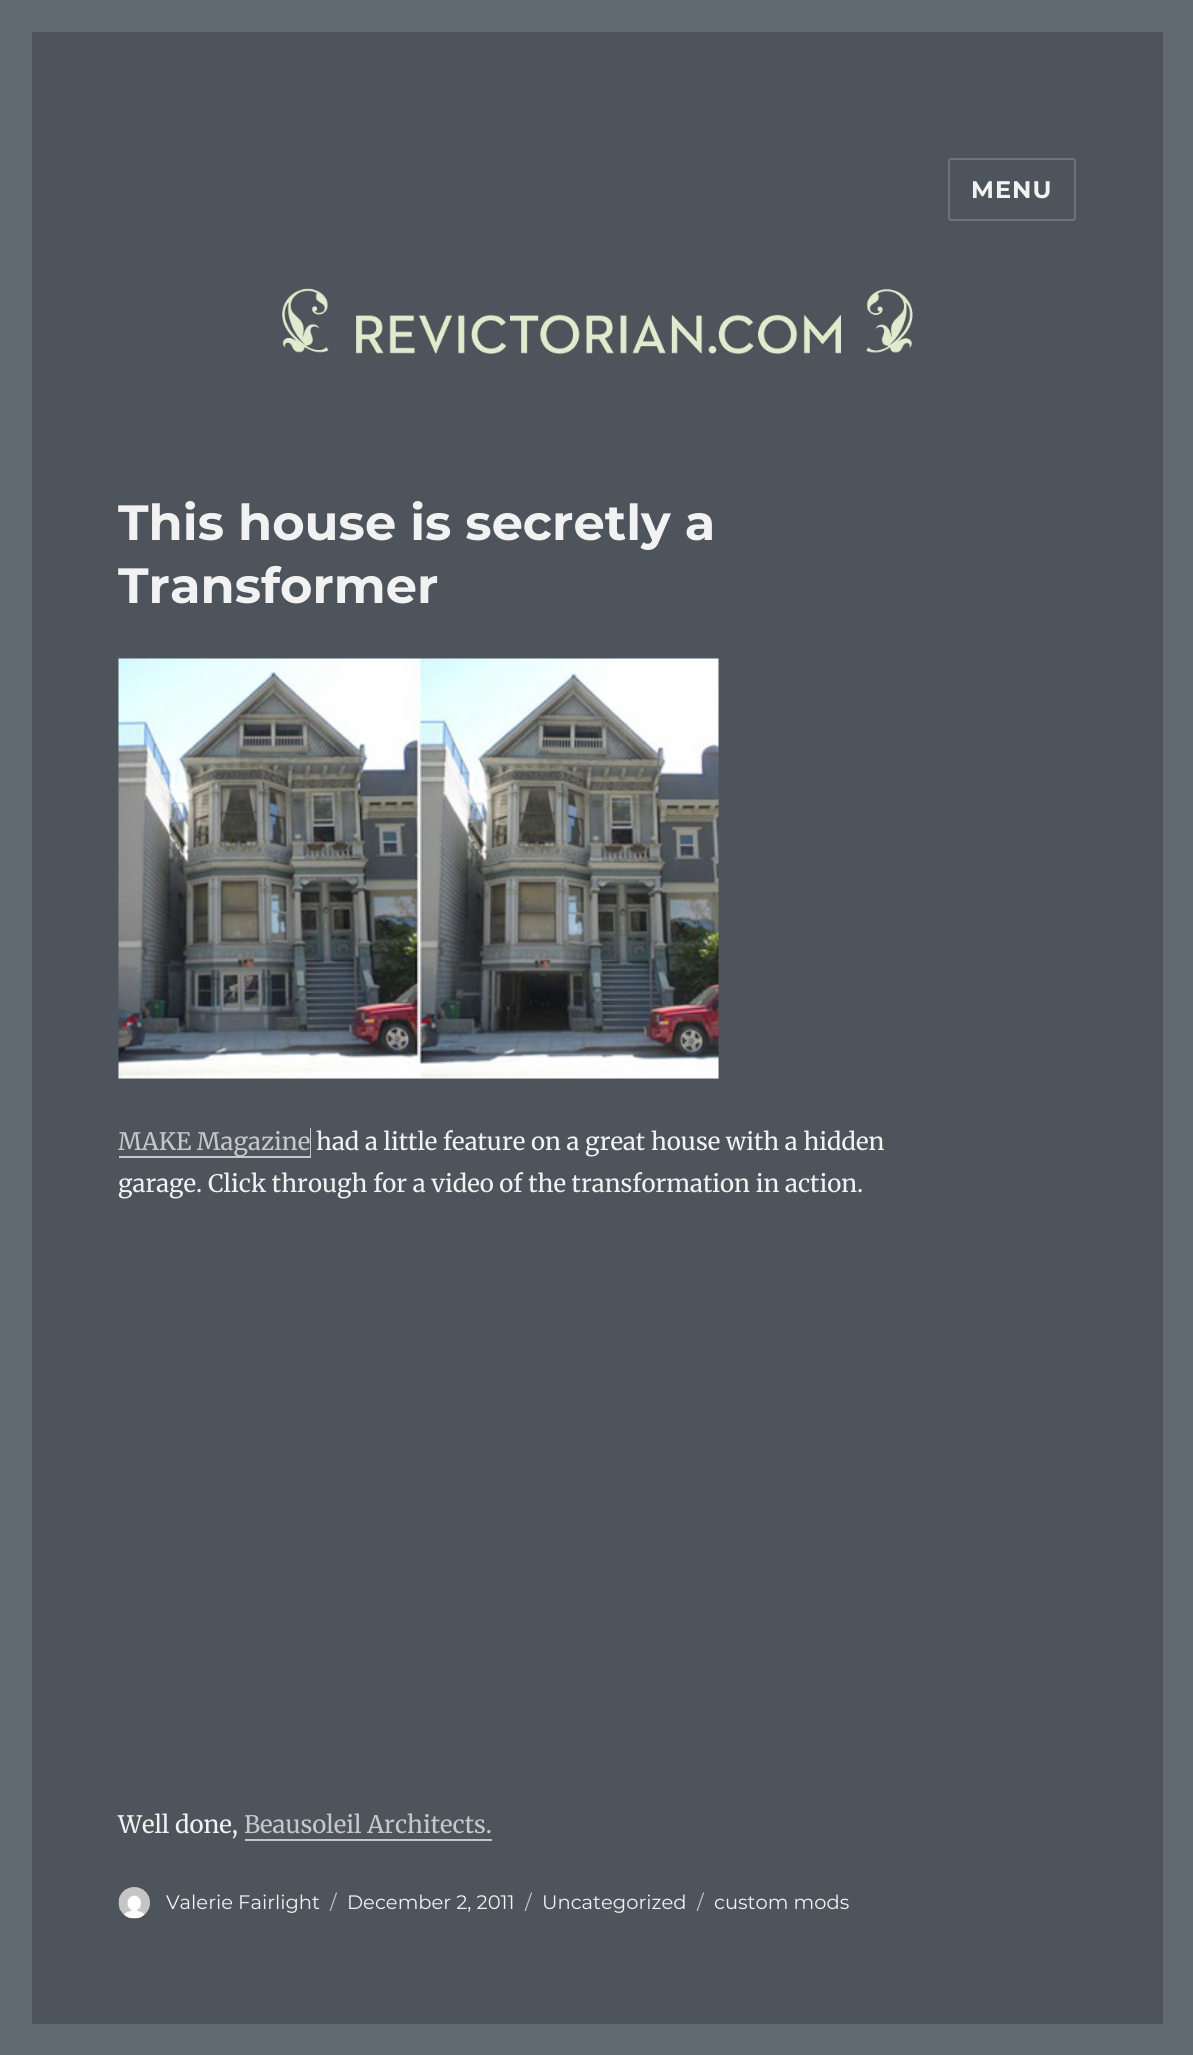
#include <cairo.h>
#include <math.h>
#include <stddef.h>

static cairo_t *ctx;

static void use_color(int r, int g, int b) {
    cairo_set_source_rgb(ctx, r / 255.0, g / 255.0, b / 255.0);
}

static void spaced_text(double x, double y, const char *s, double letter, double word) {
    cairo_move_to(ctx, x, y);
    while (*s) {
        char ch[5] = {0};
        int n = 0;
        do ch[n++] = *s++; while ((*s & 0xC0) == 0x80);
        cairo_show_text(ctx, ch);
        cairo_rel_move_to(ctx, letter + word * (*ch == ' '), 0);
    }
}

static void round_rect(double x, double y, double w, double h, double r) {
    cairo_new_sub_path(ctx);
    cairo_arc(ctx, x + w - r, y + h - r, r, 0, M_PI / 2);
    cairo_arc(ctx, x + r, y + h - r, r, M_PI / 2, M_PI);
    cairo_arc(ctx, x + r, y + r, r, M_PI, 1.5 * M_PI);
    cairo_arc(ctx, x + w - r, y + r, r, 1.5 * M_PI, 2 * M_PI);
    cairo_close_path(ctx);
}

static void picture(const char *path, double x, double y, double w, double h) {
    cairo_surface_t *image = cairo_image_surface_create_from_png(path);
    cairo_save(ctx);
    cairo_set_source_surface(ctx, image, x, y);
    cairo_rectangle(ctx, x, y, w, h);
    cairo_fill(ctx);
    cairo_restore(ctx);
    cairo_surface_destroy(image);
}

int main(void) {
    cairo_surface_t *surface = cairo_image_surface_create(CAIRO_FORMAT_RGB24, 1193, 2055);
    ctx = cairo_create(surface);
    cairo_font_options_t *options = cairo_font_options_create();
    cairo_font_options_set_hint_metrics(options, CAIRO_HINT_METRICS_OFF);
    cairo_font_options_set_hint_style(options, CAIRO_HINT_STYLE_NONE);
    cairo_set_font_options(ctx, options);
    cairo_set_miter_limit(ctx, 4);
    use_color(97, 106, 115);
    cairo_paint(ctx);
    use_color(77, 84, 92);
    cairo_rectangle(ctx, 32, 32, 1131, 1992);
    cairo_fill(ctx);
    round_rect(949, 159, 126, 61, 2);
    use_color(110, 116, 122);
    cairo_stroke(ctx);
    cairo_select_font_face(ctx, "Montserrat", CAIRO_FONT_SLANT_NORMAL, CAIRO_FONT_WEIGHT_BOLD);
    cairo_set_font_size(ctx, 24);
    use_color(242, 242, 242);
    spaced_text(971, 198, "MENU", 1, 0);
    picture("img1.png", 282, 288, 631, 66);
    cairo_set_font_size(ctx, 49.5);
    cairo_move_to(ctx, 118, 540);
    cairo_show_text(ctx, "This house is secretly a");
    cairo_move_to(ctx, 118, 603);
    cairo_show_text(ctx, "Transformer");
    picture("img2.png", 118, 658, 601, 421);
    use_color(199, 199, 199);
    cairo_new_path(ctx);
    cairo_move_to(ctx, 119, 1156);
    cairo_line_to(ctx, 119, 1158);
    cairo_line_to(ctx, 311, 1158);
    cairo_line_to(ctx, 311, 1128);
    cairo_line_to(ctx, 310, 1128);
    cairo_line_to(ctx, 310, 1156);
    cairo_close_path(ctx);
    cairo_fill(ctx);
    cairo_select_font_face(ctx, "Merriweather", CAIRO_FONT_SLANT_NORMAL, CAIRO_FONT_WEIGHT_NORMAL);
    cairo_set_font_size(ctx, 24);
    cairo_move_to(ctx, 118, 1150);
    cairo_show_text(ctx, "MAKE Magazine");
    use_color(242, 242, 242);
    cairo_move_to(ctx, 316, 1150);
    cairo_show_text(ctx, "had a little feature on a great house with a hidden");
    cairo_move_to(ctx, 118, 1192);
    cairo_show_text(ctx, "garage. Click through for a video of the transformation in action.");
    cairo_move_to(ctx, 118, 1833);
    cairo_show_text(ctx, "Well done,");
    use_color(199, 199, 199);
    cairo_move_to(ctx, 244, 1833);
    cairo_show_text(ctx, "Beausoleil Architects.");
    cairo_rectangle(ctx, 245, 1839, 247, 2);
    cairo_fill(ctx);
    picture("img3.png", 118, 1887, 32, 32);
    cairo_select_font_face(ctx, "Montserrat", CAIRO_FONT_SLANT_NORMAL, CAIRO_FONT_WEIGHT_NORMAL);
    cairo_set_font_size(ctx, 19.5);
    use_color(242, 242, 242);
    cairo_move_to(ctx, 166, 1909);
    cairo_show_text(ctx, "Valerie Fairlight");
    use_color(193, 195, 197);
    cairo_move_to(ctx, 330, 1909);
    cairo_show_text(ctx, "/");
    use_color(242, 242, 242);
    cairo_move_to(ctx, 347, 1909);
    cairo_show_text(ctx, "December 2, 2011");
    use_color(193, 195, 197);
    cairo_move_to(ctx, 525, 1909);
    cairo_show_text(ctx, "/");
    use_color(242, 242, 242);
    cairo_move_to(ctx, 542, 1909);
    cairo_show_text(ctx, "Uncategorized");
    use_color(193, 195, 197);
    cairo_move_to(ctx, 697, 1909);
    cairo_show_text(ctx, "/");
    use_color(242, 242, 242);
    cairo_move_to(ctx, 714, 1909);
    cairo_show_text(ctx, "custom mods");
    cairo_surface_write_to_png(surface, "result.png");
    cairo_font_options_destroy(options);
    cairo_destroy(ctx);
    cairo_surface_destroy(surface);
    return 0;
}
